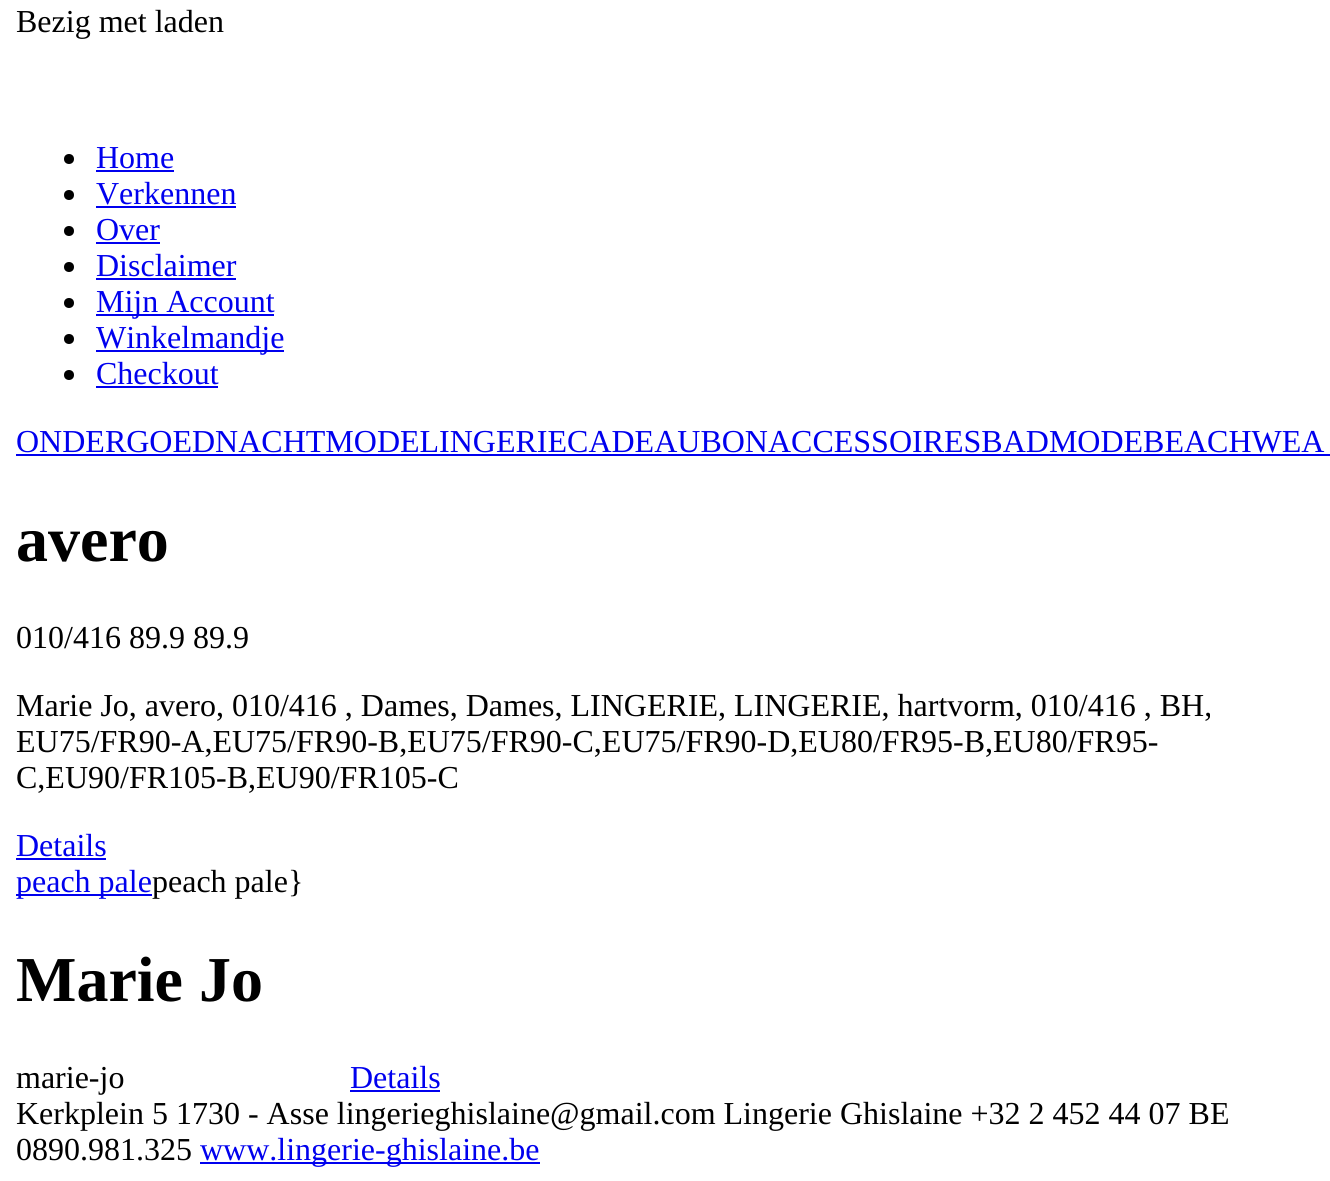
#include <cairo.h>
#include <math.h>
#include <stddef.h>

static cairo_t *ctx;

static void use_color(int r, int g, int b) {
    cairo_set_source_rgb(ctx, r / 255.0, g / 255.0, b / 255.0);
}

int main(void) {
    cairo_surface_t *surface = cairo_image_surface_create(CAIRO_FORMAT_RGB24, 1330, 1181);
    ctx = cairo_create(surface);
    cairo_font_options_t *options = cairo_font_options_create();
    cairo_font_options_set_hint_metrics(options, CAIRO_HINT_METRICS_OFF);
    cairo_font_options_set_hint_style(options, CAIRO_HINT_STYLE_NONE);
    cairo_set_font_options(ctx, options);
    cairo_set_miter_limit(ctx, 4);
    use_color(255, 255, 255);
    cairo_paint(ctx);
    cairo_select_font_face(ctx, "Liberation Serif", CAIRO_FONT_SLANT_NORMAL, CAIRO_FONT_WEIGHT_NORMAL);
    cairo_set_font_size(ctx, 32);
    use_color(0, 0, 0);
    cairo_move_to(ctx, 16, 32);
    cairo_show_text(ctx, "Bezig met laden");
    cairo_new_path(ctx);
    cairo_arc(ctx, 69, 159, 5, 0, 2 * M_PI);
    cairo_fill(ctx);
    use_color(0, 0, 238);
    cairo_move_to(ctx, 96, 168);
    cairo_show_text(ctx, "Home");
    cairo_rectangle(ctx, 96, 170, 78, 2);
    cairo_fill(ctx);
    use_color(0, 0, 0);
    cairo_arc(ctx, 69, 195, 5, 0, 2 * M_PI);
    cairo_fill(ctx);
    use_color(0, 0, 238);
    cairo_move_to(ctx, 96, 204);
    cairo_show_text(ctx, "Verkennen");
    cairo_rectangle(ctx, 96, 206, 140, 2);
    cairo_fill(ctx);
    use_color(0, 0, 0);
    cairo_arc(ctx, 69, 231, 5, 0, 2 * M_PI);
    cairo_fill(ctx);
    use_color(0, 0, 238);
    cairo_move_to(ctx, 96, 240);
    cairo_show_text(ctx, "Over");
    cairo_rectangle(ctx, 96, 242, 64, 2);
    cairo_fill(ctx);
    use_color(0, 0, 0);
    cairo_arc(ctx, 69, 267, 5, 0, 2 * M_PI);
    cairo_fill(ctx);
    use_color(0, 0, 238);
    cairo_move_to(ctx, 96, 276);
    cairo_show_text(ctx, "Disclaimer");
    cairo_rectangle(ctx, 96, 278, 140, 2);
    cairo_fill(ctx);
    use_color(0, 0, 0);
    cairo_arc(ctx, 69, 303, 5, 0, 2 * M_PI);
    cairo_fill(ctx);
    use_color(0, 0, 238);
    cairo_rectangle(ctx, 96, 314, 178, 2);
    cairo_fill(ctx);
    cairo_move_to(ctx, 96, 312);
    cairo_show_text(ctx, "Mijn Account");
    use_color(0, 0, 0);
    cairo_new_path(ctx);
    cairo_arc(ctx, 69, 339, 5, 0, 2 * M_PI);
    cairo_fill(ctx);
    use_color(0, 0, 238);
    cairo_rectangle(ctx, 96, 350, 188, 2);
    cairo_fill(ctx);
    cairo_move_to(ctx, 96, 348);
    cairo_show_text(ctx, "Winkelmandje");
    use_color(0, 0, 0);
    cairo_new_path(ctx);
    cairo_arc(ctx, 69, 375, 5, 0, 2 * M_PI);
    cairo_fill(ctx);
    use_color(0, 0, 238);
    cairo_move_to(ctx, 96, 384);
    cairo_show_text(ctx, "Checkout");
    cairo_rectangle(ctx, 96, 386, 122, 2);
    cairo_fill(ctx);
    cairo_move_to(ctx, 16, 452);
    cairo_show_text(ctx, "ONDERGOEDNACHTMODELINGERIECADEAUBONACCESSOIRESBADMODEBEACHWEA");
    cairo_rectangle(ctx, 16, 454, 1314, 2);
    cairo_fill(ctx);
    cairo_select_font_face(ctx, "Liberation Serif", CAIRO_FONT_SLANT_NORMAL, CAIRO_FONT_WEIGHT_BOLD);
    cairo_set_font_size(ctx, 64);
    use_color(0, 0, 0);
    cairo_move_to(ctx, 16, 561);
    cairo_show_text(ctx, "avero");
    cairo_select_font_face(ctx, "Liberation Serif", CAIRO_FONT_SLANT_NORMAL, CAIRO_FONT_WEIGHT_NORMAL);
    cairo_set_font_size(ctx, 32);
    cairo_move_to(ctx, 16, 648);
    cairo_show_text(ctx, "010/416 89.9 89.9");
    cairo_move_to(ctx, 16, 716);
    cairo_show_text(ctx, "Marie Jo, avero, 010/416 , Dames, Dames, LINGERIE, LINGERIE, hartvorm, 010/416 , BH,");
    cairo_move_to(ctx, 16, 752);
    cairo_show_text(ctx, "EU75/FR90-A,EU75/FR90-B,EU75/FR90-C,EU75/FR90-D,EU80/FR95-B,EU80/FR95-");
    cairo_move_to(ctx, 16, 788);
    cairo_show_text(ctx, "C,EU90/FR105-B,EU90/FR105-C");
    use_color(0, 0, 238);
    cairo_move_to(ctx, 16, 856);
    cairo_show_text(ctx, "Details");
    cairo_rectangle(ctx, 16, 858, 90, 2);
    cairo_fill(ctx);
    cairo_rectangle(ctx, 16, 894, 136, 2);
    cairo_fill(ctx);
    cairo_move_to(ctx, 16, 892);
    cairo_show_text(ctx, "peach pale");
    use_color(0, 0, 0);
    cairo_move_to(ctx, 152, 892);
    cairo_show_text(ctx, "peach pale}");
    cairo_select_font_face(ctx, "Liberation Serif", CAIRO_FONT_SLANT_NORMAL, CAIRO_FONT_WEIGHT_BOLD);
    cairo_set_font_size(ctx, 64);
    cairo_move_to(ctx, 16, 1001);
    cairo_show_text(ctx, "Marie Jo");
    cairo_select_font_face(ctx, "Liberation Serif", CAIRO_FONT_SLANT_NORMAL, CAIRO_FONT_WEIGHT_NORMAL);
    cairo_set_font_size(ctx, 32);
    cairo_move_to(ctx, 16, 1088);
    cairo_show_text(ctx, "marie-jo");
    use_color(0, 0, 238);
    cairo_move_to(ctx, 350, 1088);
    cairo_show_text(ctx, "Details");
    cairo_rectangle(ctx, 350, 1090, 90, 2);
    cairo_fill(ctx);
    use_color(0, 0, 0);
    cairo_move_to(ctx, 16, 1124);
    cairo_show_text(ctx, "Kerkplein 5 1730 - Asse lingerieghislaine@gmail.com Lingerie Ghislaine +32 2 452 44 07 BE");
    cairo_move_to(ctx, 16, 1160);
    cairo_show_text(ctx, "0890.981.325");
    use_color(0, 0, 238);
    cairo_rectangle(ctx, 200, 1162, 340, 2);
    cairo_fill(ctx);
    cairo_move_to(ctx, 200, 1160);
    cairo_show_text(ctx, "www.lingerie-ghislaine.be");
    cairo_surface_write_to_png(surface, "result.png");
    cairo_font_options_destroy(options);
    cairo_destroy(ctx);
    cairo_surface_destroy(surface);
    return 0;
}
